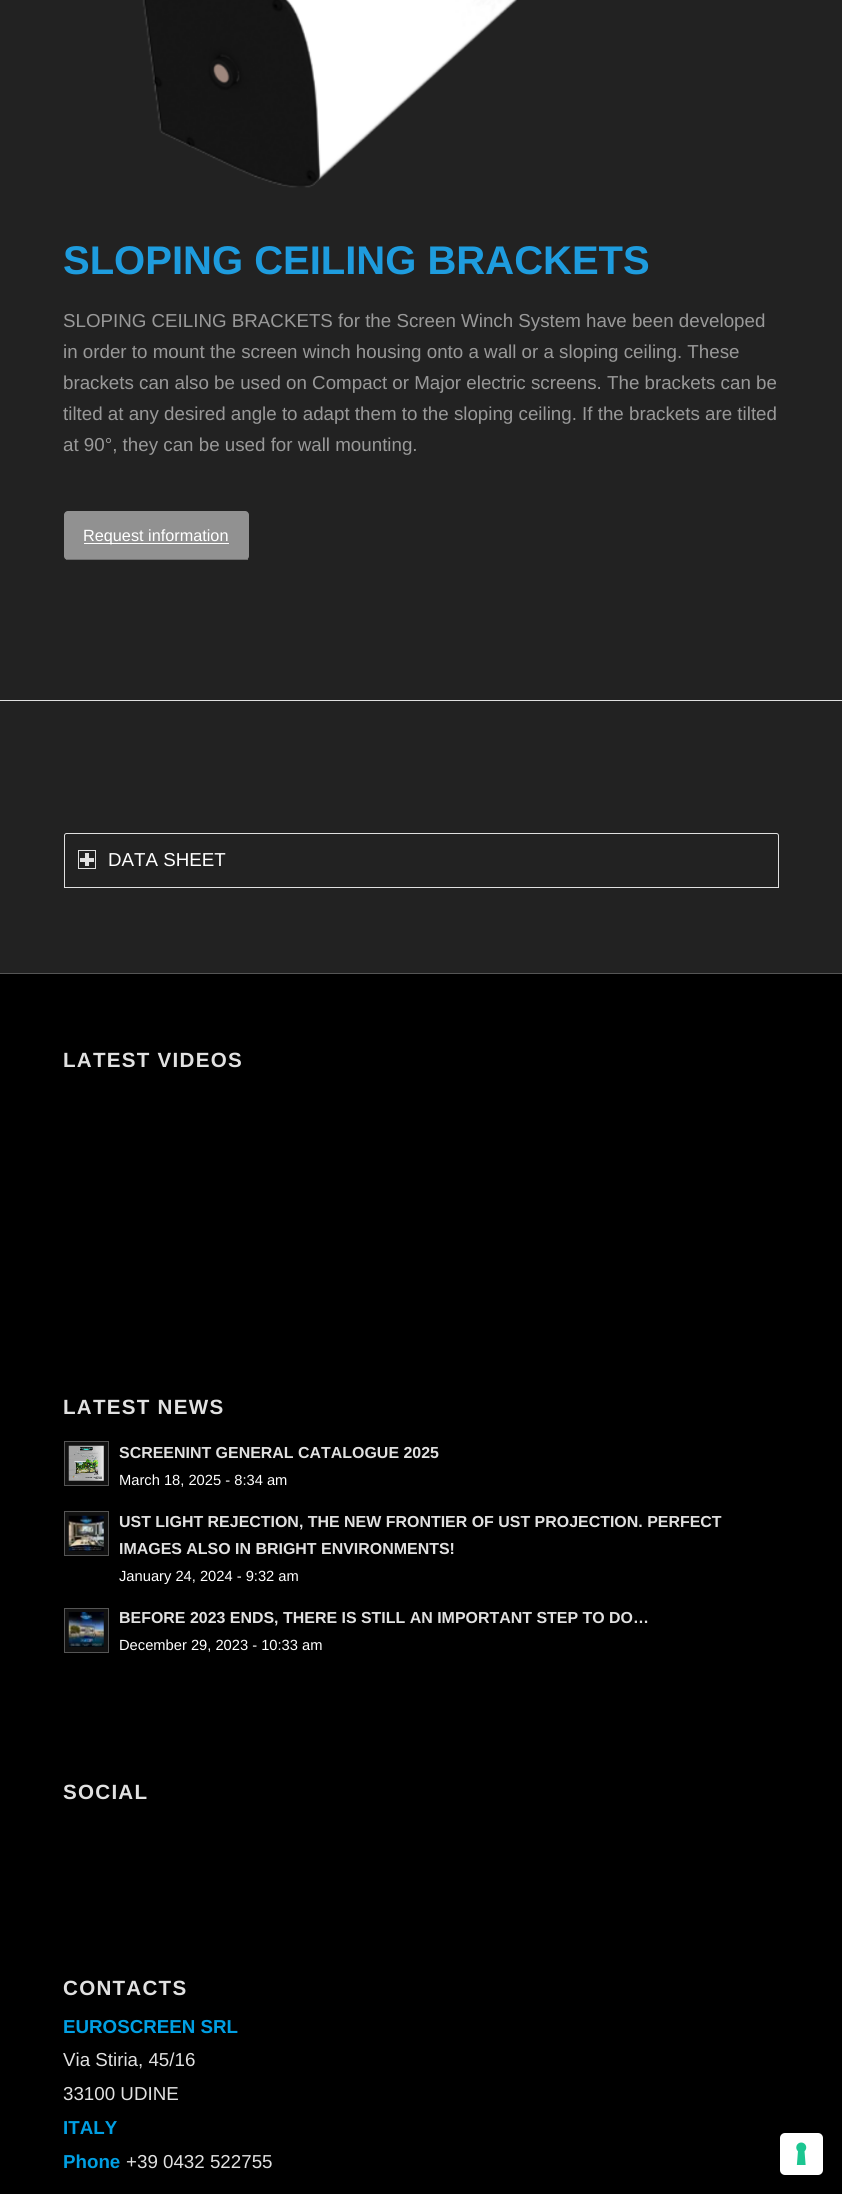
#include <cairo.h>
#include <math.h>
#include <stddef.h>

static cairo_t *ctx;

static void use_color(int r, int g, int b) {
    cairo_set_source_rgb(ctx, r / 255.0, g / 255.0, b / 255.0);
}

static void spaced_text(double x, double y, const char *s, double letter, double word) {
    cairo_move_to(ctx, x, y);
    while (*s) {
        char ch[5] = {0};
        int n = 0;
        do ch[n++] = *s++; while ((*s & 0xC0) == 0x80);
        cairo_show_text(ctx, ch);
        cairo_rel_move_to(ctx, letter + word * (*ch == ' '), 0);
    }
}

static void round_rect(double x, double y, double w, double h, double r) {
    cairo_new_sub_path(ctx);
    cairo_arc(ctx, x + w - r, y + h - r, r, 0, M_PI / 2);
    cairo_arc(ctx, x + r, y + h - r, r, M_PI / 2, M_PI);
    cairo_arc(ctx, x + r, y + r, r, M_PI, 1.5 * M_PI);
    cairo_arc(ctx, x + w - r, y + r, r, 1.5 * M_PI, 2 * M_PI);
    cairo_close_path(ctx);
}

static void picture(const char *path, double x, double y, double w, double h) {
    cairo_surface_t *image = cairo_image_surface_create_from_png(path);
    cairo_save(ctx);
    cairo_set_source_surface(ctx, image, x, y);
    cairo_rectangle(ctx, x, y, w, h);
    cairo_fill(ctx);
    cairo_restore(ctx);
    cairo_surface_destroy(image);
}

int main(void) {
    cairo_surface_t *surface = cairo_image_surface_create(CAIRO_FORMAT_RGB24, 842, 2194);
    ctx = cairo_create(surface);
    cairo_font_options_t *options = cairo_font_options_create();
    cairo_font_options_set_hint_metrics(options, CAIRO_HINT_METRICS_OFF);
    cairo_font_options_set_hint_style(options, CAIRO_HINT_STYLE_NONE);
    cairo_set_font_options(ctx, options);
    cairo_set_miter_limit(ctx, 4);
    use_color(0, 0, 0);
    cairo_paint(ctx);
    use_color(34, 34, 34);
    cairo_rectangle(ctx, 0, 0, 842, 973);
    cairo_fill(ctx);
    picture("img1.png", 142, 0, 375, 188);
    cairo_select_font_face(ctx, "Liberation Sans", CAIRO_FONT_SLANT_NORMAL, CAIRO_FONT_WEIGHT_BOLD);
    cairo_set_font_size(ctx, 40);
    use_color(30, 156, 222);
    cairo_move_to(ctx, 63, 274);
    cairo_show_text(ctx, "SLOPING CEILING BRACKETS");
    cairo_select_font_face(ctx, "Liberation Sans", CAIRO_FONT_SLANT_NORMAL, CAIRO_FONT_WEIGHT_NORMAL);
    cairo_set_font_size(ctx, 18.75);
    use_color(153, 153, 153);
    cairo_move_to(ctx, 63, 327);
    cairo_show_text(ctx, "SLOPING CEILING BRACKETS for the Screen Winch System have been developed");
    cairo_move_to(ctx, 63, 358);
    cairo_show_text(ctx, "in order to mount the screen winch housing onto a wall or a sloping ceiling. These");
    cairo_move_to(ctx, 63, 389);
    cairo_show_text(ctx, "brackets can also be used on Compact or Major electric screens. The brackets can be");
    cairo_move_to(ctx, 63, 420);
    cairo_show_text(ctx, "tilted at any desired angle to adapt them to the sloping ceiling. If the brackets are tilted");
    cairo_move_to(ctx, 63, 451);
    cairo_show_text(ctx, "at 90°, they can be used for wall mounting.");
    use_color(145, 145, 145);
    round_rect(64, 511, 185, 49, 4);
    cairo_fill(ctx);
    use_color(112, 112, 112);
    cairo_rectangle(ctx, 66, 559, 182, 1);
    cairo_fill(ctx);
    use_color(255, 255, 255);
    cairo_rectangle(ctx, 84, 543, 145, 1);
    cairo_fill(ctx);
    cairo_set_font_size(ctx, 16.25);
    cairo_move_to(ctx, 83, 541);
    cairo_show_text(ctx, "Request information");
    use_color(225, 225, 225);
    cairo_rectangle(ctx, 0, 700, 842, 1);
    cairo_fill(ctx);
    cairo_new_path(ctx);
    cairo_move_to(ctx, 66.5, 833.5);
    cairo_line_to(ctx, 776.5, 833.5);
    cairo_curve_to(ctx, 777.5, 833.5, 778.5, 834.5, 778.5, 835.5);
    cairo_line_to(ctx, 778.5, 887.5);
    cairo_line_to(ctx, 64.5, 887.5);
    cairo_line_to(ctx, 64.5, 835.5);
    cairo_curve_to(ctx, 64.5, 834.5, 65.5, 833.5, 66.5, 833.5);
    cairo_close_path(ctx);
    cairo_set_line_width(ctx, 1);
    cairo_stroke(ctx);
    cairo_rectangle(ctx, 78.5, 850.5, 17, 18);
    cairo_stroke(ctx);
    cairo_rectangle(ctx, 85, 853, 4, 13);
    cairo_fill(ctx);
    cairo_rectangle(ctx, 80, 858, 14, 4);
    cairo_fill(ctx);
    cairo_set_font_size(ctx, 18.75);
    use_color(255, 255, 255);
    cairo_move_to(ctx, 108, 866);
    cairo_show_text(ctx, "DATA SHEET");
    use_color(85, 85, 85);
    cairo_rectangle(ctx, 0, 973, 842, 1);
    cairo_fill(ctx);
    cairo_select_font_face(ctx, "Liberation Sans", CAIRO_FONT_SLANT_NORMAL, CAIRO_FONT_WEIGHT_BOLD);
    cairo_set_font_size(ctx, 20.6);
    use_color(225, 225, 225);
    spaced_text(63, 1067, "LATEST VIDEOS", 1.25, 0);
    spaced_text(63, 1414, "LATEST NEWS", 1.25, 0);
    use_color(17, 17, 17);
    cairo_rectangle(ctx, 64.5, 1441.5, 44, 44);
    cairo_fill_preserve(ctx);
    use_color(85, 85, 85);
    cairo_stroke(ctx);
    picture("img2.png", 68, 1445, 36, 36);
    cairo_set_font_size(ctx, 15.95);
    use_color(225, 225, 225);
    cairo_move_to(ctx, 119, 1458);
    cairo_show_text(ctx, "SCREENINT GENERAL CATALOGUE 2025");
    cairo_select_font_face(ctx, "Liberation Sans", CAIRO_FONT_SLANT_NORMAL, CAIRO_FONT_WEIGHT_NORMAL);
    cairo_set_font_size(ctx, 14.7);
    use_color(255, 255, 255);
    cairo_move_to(ctx, 119, 1485);
    cairo_show_text(ctx, "March 18, 2025 - 8:34 am");
    use_color(17, 17, 17);
    cairo_rectangle(ctx, 64.5, 1511.5, 44, 44);
    cairo_fill_preserve(ctx);
    use_color(85, 85, 85);
    cairo_stroke(ctx);
    picture("img3.png", 68, 1515, 36, 36);
    cairo_select_font_face(ctx, "Liberation Sans", CAIRO_FONT_SLANT_NORMAL, CAIRO_FONT_WEIGHT_BOLD);
    cairo_set_font_size(ctx, 15.95);
    use_color(225, 225, 225);
    cairo_move_to(ctx, 119, 1527);
    cairo_show_text(ctx, "UST LIGHT REJECTION, THE NEW FRONTIER OF UST PROJECTION. PERFECT");
    cairo_move_to(ctx, 119, 1554);
    cairo_show_text(ctx, "IMAGES ALSO IN BRIGHT ENVIRONMENTS!");
    cairo_select_font_face(ctx, "Liberation Sans", CAIRO_FONT_SLANT_NORMAL, CAIRO_FONT_WEIGHT_NORMAL);
    cairo_set_font_size(ctx, 14.7);
    use_color(255, 255, 255);
    cairo_move_to(ctx, 119, 1581);
    cairo_show_text(ctx, "January 24, 2024 - 9:32 am");
    use_color(17, 17, 17);
    cairo_rectangle(ctx, 64.5, 1608.5, 44, 44);
    cairo_fill_preserve(ctx);
    use_color(85, 85, 85);
    cairo_stroke(ctx);
    picture("img4.png", 68, 1612, 36, 35);
    cairo_select_font_face(ctx, "Liberation Sans", CAIRO_FONT_SLANT_NORMAL, CAIRO_FONT_WEIGHT_BOLD);
    cairo_set_font_size(ctx, 15.95);
    use_color(225, 225, 225);
    cairo_move_to(ctx, 119, 1623);
    cairo_show_text(ctx, "BEFORE 2023 ENDS, THERE IS STILL AN IMPORTANT STEP TO DO…");
    cairo_select_font_face(ctx, "Liberation Sans", CAIRO_FONT_SLANT_NORMAL, CAIRO_FONT_WEIGHT_NORMAL);
    cairo_set_font_size(ctx, 14.7);
    use_color(255, 255, 255);
    cairo_move_to(ctx, 119, 1650);
    cairo_show_text(ctx, "December 29, 2023 - 10:33 am");
    cairo_select_font_face(ctx, "Liberation Sans", CAIRO_FONT_SLANT_NORMAL, CAIRO_FONT_WEIGHT_BOLD);
    cairo_set_font_size(ctx, 20.6);
    use_color(225, 225, 225);
    spaced_text(63, 1799, "SOCIAL", 1.25, 0);
    spaced_text(63, 1995, "CONTACTS", 1.25, 0);
    cairo_set_font_size(ctx, 18.75);
    use_color(0, 159, 227);
    cairo_move_to(ctx, 63, 2033);
    cairo_show_text(ctx, "EUROSCREEN SRL");
    cairo_select_font_face(ctx, "Liberation Sans", CAIRO_FONT_SLANT_NORMAL, CAIRO_FONT_WEIGHT_NORMAL);
    use_color(225, 225, 225);
    cairo_move_to(ctx, 63, 2066);
    cairo_show_text(ctx, "Via Stiria, 45/16");
    cairo_move_to(ctx, 63, 2100);
    cairo_show_text(ctx, "33100 UDINE");
    cairo_select_font_face(ctx, "Liberation Sans", CAIRO_FONT_SLANT_NORMAL, CAIRO_FONT_WEIGHT_BOLD);
    use_color(0, 159, 227);
    cairo_move_to(ctx, 63, 2134);
    cairo_show_text(ctx, "ITALY");
    cairo_move_to(ctx, 63, 2168);
    cairo_show_text(ctx, "Phone");
    cairo_select_font_face(ctx, "Liberation Sans", CAIRO_FONT_SLANT_NORMAL, CAIRO_FONT_WEIGHT_NORMAL);
    use_color(225, 225, 225);
    cairo_move_to(ctx, 126, 2168);
    cairo_show_text(ctx, "+39 0432 522755");
    use_color(255, 255, 255);
    round_rect(780, 2133, 43, 42, 5);
    cairo_fill(ctx);
    picture("img5.png", 796, 2142, 11, 23);
    cairo_surface_write_to_png(surface, "result.png");
    cairo_font_options_destroy(options);
    cairo_destroy(ctx);
    cairo_surface_destroy(surface);
    return 0;
}
